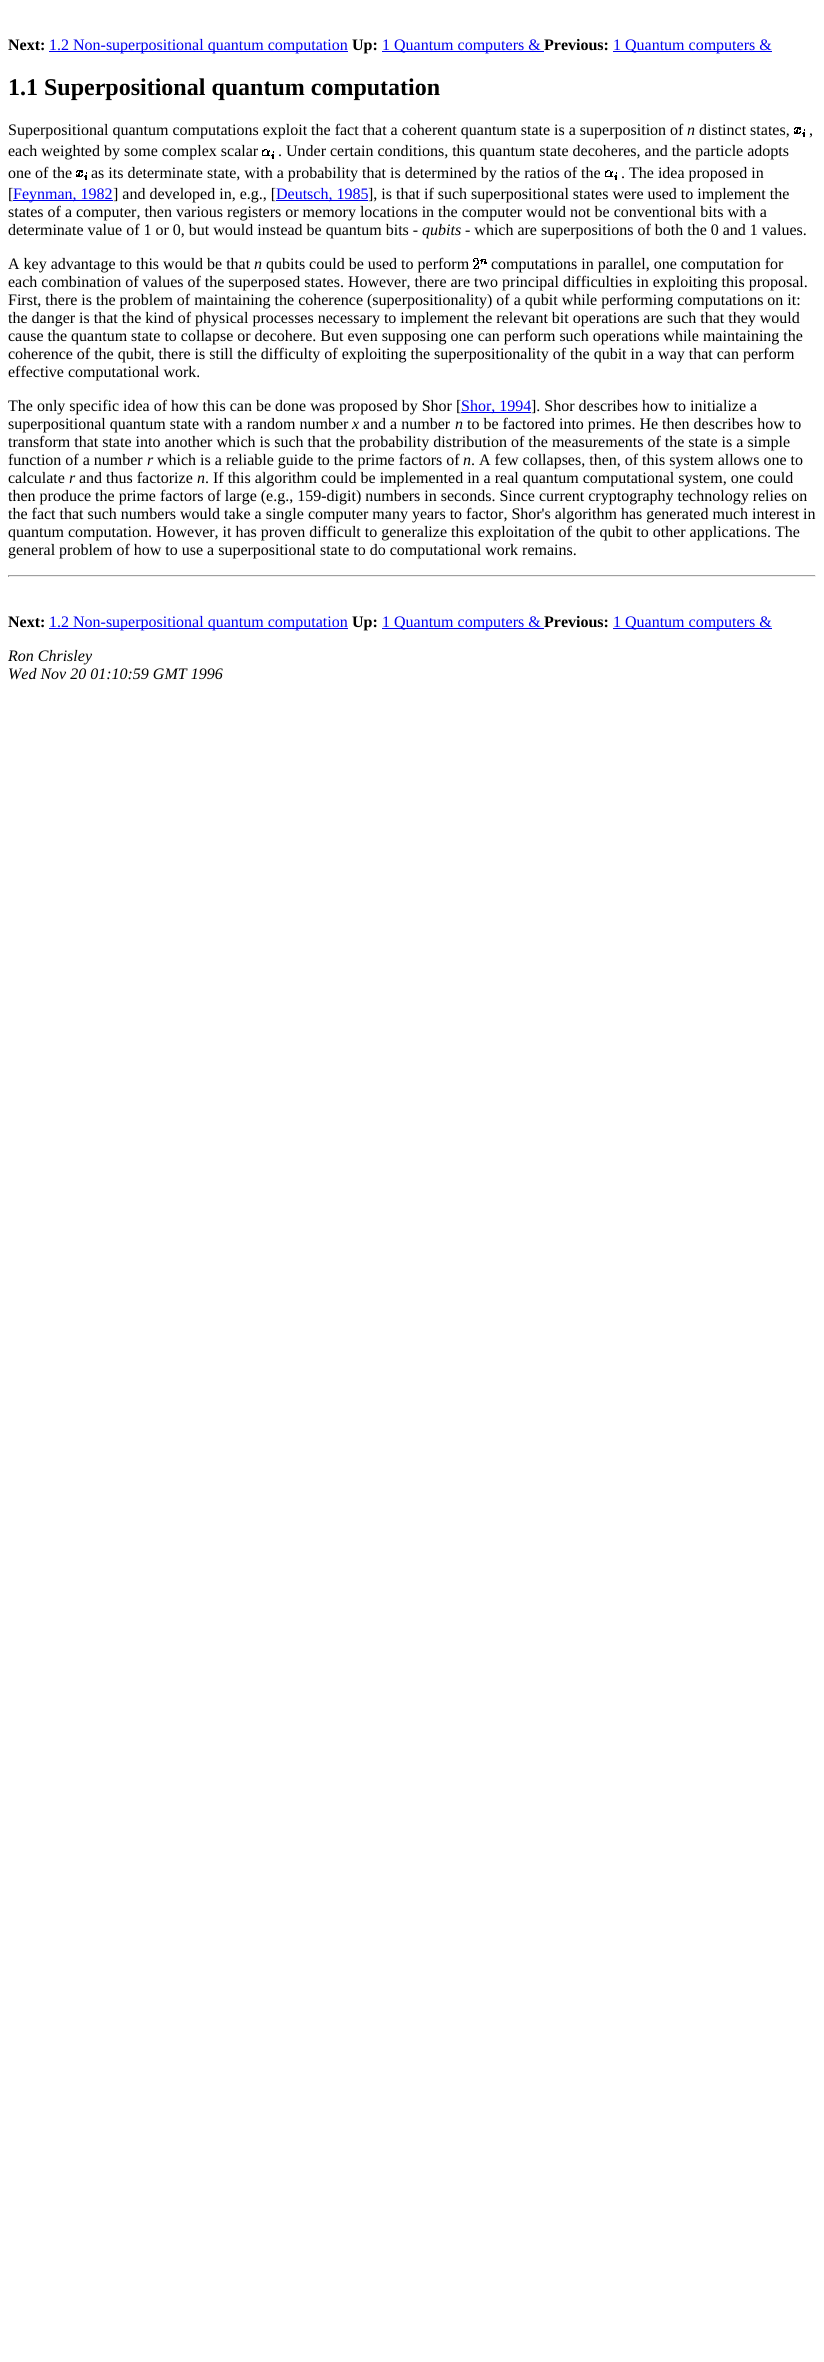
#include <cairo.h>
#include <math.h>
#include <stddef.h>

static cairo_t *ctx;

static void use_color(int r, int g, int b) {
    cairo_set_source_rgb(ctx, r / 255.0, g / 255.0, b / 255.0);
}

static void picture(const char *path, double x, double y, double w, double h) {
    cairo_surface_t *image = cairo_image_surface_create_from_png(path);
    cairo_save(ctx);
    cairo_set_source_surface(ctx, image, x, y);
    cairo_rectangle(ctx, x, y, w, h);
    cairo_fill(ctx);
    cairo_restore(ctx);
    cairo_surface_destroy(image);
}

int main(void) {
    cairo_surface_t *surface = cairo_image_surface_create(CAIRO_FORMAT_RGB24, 824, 2362);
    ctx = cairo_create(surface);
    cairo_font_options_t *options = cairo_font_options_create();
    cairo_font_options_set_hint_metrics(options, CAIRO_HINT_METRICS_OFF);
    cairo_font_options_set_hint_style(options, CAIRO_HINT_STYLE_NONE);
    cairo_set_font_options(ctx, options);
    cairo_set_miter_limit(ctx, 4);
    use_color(255, 255, 255);
    cairo_paint(ctx);
    cairo_select_font_face(ctx, "Liberation Serif", CAIRO_FONT_SLANT_NORMAL, CAIRO_FONT_WEIGHT_BOLD);
    cairo_set_font_size(ctx, 16);
    use_color(0, 0, 0);
    cairo_move_to(ctx, 8, 50);
    cairo_show_text(ctx, "Next:");
    use_color(0, 0, 238);
    cairo_rectangle(ctx, 49, 51, 299, 1);
    cairo_fill(ctx);
    cairo_select_font_face(ctx, "Liberation Serif", CAIRO_FONT_SLANT_NORMAL, CAIRO_FONT_WEIGHT_NORMAL);
    cairo_move_to(ctx, 49, 50);
    cairo_show_text(ctx, "1.2 Non-superpositional quantum computation");
    cairo_select_font_face(ctx, "Liberation Serif", CAIRO_FONT_SLANT_NORMAL, CAIRO_FONT_WEIGHT_BOLD);
    use_color(0, 0, 0);
    cairo_move_to(ctx, 352, 50);
    cairo_show_text(ctx, "Up:");
    use_color(0, 0, 238);
    cairo_rectangle(ctx, 382, 51, 162, 1);
    cairo_fill(ctx);
    cairo_select_font_face(ctx, "Liberation Serif", CAIRO_FONT_SLANT_NORMAL, CAIRO_FONT_WEIGHT_NORMAL);
    cairo_move_to(ctx, 382, 50);
    cairo_show_text(ctx, "1 Quantum computers &");
    cairo_select_font_face(ctx, "Liberation Serif", CAIRO_FONT_SLANT_NORMAL, CAIRO_FONT_WEIGHT_BOLD);
    use_color(0, 0, 0);
    cairo_move_to(ctx, 544, 50);
    cairo_show_text(ctx, "Previous:");
    use_color(0, 0, 238);
    cairo_rectangle(ctx, 613, 51, 159, 1);
    cairo_fill(ctx);
    cairo_select_font_face(ctx, "Liberation Serif", CAIRO_FONT_SLANT_NORMAL, CAIRO_FONT_WEIGHT_NORMAL);
    cairo_move_to(ctx, 613, 50);
    cairo_show_text(ctx, "1 Quantum computers &");
    cairo_select_font_face(ctx, "Liberation Serif", CAIRO_FONT_SLANT_NORMAL, CAIRO_FONT_WEIGHT_BOLD);
    cairo_set_font_size(ctx, 24);
    use_color(0, 0, 0);
    cairo_move_to(ctx, 8, 95);
    cairo_show_text(ctx, "1.1 Superpositional quantum computation");
    cairo_select_font_face(ctx, "Liberation Serif", CAIRO_FONT_SLANT_NORMAL, CAIRO_FONT_WEIGHT_NORMAL);
    cairo_set_font_size(ctx, 16);
    cairo_move_to(ctx, 8, 135);
    cairo_show_text(ctx, "Superpositional quantum computations exploit the fact that a coherent quantum state is a superposition of");
    cairo_select_font_face(ctx, "Liberation Serif", CAIRO_FONT_SLANT_ITALIC, CAIRO_FONT_WEIGHT_NORMAL);
    cairo_move_to(ctx, 687, 135);
    cairo_show_text(ctx, "n");
    cairo_select_font_face(ctx, "Liberation Serif", CAIRO_FONT_SLANT_NORMAL, CAIRO_FONT_WEIGHT_NORMAL);
    cairo_move_to(ctx, 699, 135);
    cairo_show_text(ctx, "distinct states,");
    picture("img1.png", 794, 127, 11, 10);
    cairo_move_to(ctx, 809, 135);
    cairo_show_text(ctx, ",");
    cairo_move_to(ctx, 8, 156);
    cairo_show_text(ctx, "each weighted by some complex scalar");
    picture("img2.png", 262, 149, 12, 10);
    cairo_move_to(ctx, 278, 156);
    cairo_show_text(ctx, ". Under certain conditions, this quantum state decoheres, and the particle adopts");
    cairo_move_to(ctx, 8, 178);
    cairo_show_text(ctx, "one of the");
    picture("img1.png", 76, 170, 11, 10);
    cairo_move_to(ctx, 91, 178);
    cairo_show_text(ctx, "as its determinate state, with a probability that is determined by the ratios of the");
    picture("img2.png", 605, 170, 12, 10);
    cairo_move_to(ctx, 621, 178);
    cairo_show_text(ctx, ". The idea proposed in");
    cairo_move_to(ctx, 8, 199);
    cairo_show_text(ctx, "[");
    use_color(0, 0, 238);
    cairo_rectangle(ctx, 13, 200, 100, 1);
    cairo_fill(ctx);
    cairo_move_to(ctx, 13, 199);
    cairo_show_text(ctx, "Feynman, 1982");
    use_color(0, 0, 0);
    cairo_move_to(ctx, 113, 199);
    cairo_show_text(ctx, "] and developed in, e.g., [");
    use_color(0, 0, 238);
    cairo_rectangle(ctx, 276, 200, 92, 1);
    cairo_fill(ctx);
    cairo_move_to(ctx, 276, 199);
    cairo_show_text(ctx, "Deutsch, 1985");
    use_color(0, 0, 0);
    cairo_move_to(ctx, 368, 199);
    cairo_show_text(ctx, "], is that if such superpositional states were used to implement the");
    cairo_move_to(ctx, 8, 217);
    cairo_show_text(ctx, "states of a computer, then various registers or memory locations in the computer would not be conventional bits with a");
    cairo_move_to(ctx, 8, 235);
    cairo_show_text(ctx, "determinate value of 1 or 0, but would instead be quantum bits -");
    cairo_select_font_face(ctx, "Liberation Serif", CAIRO_FONT_SLANT_ITALIC, CAIRO_FONT_WEIGHT_NORMAL);
    cairo_move_to(ctx, 422, 235);
    cairo_show_text(ctx, "qubits");
    cairo_select_font_face(ctx, "Liberation Serif", CAIRO_FONT_SLANT_NORMAL, CAIRO_FONT_WEIGHT_NORMAL);
    cairo_move_to(ctx, 465, 235);
    cairo_show_text(ctx, "- which are superpositions of both the 0 and 1 values.");
    cairo_move_to(ctx, 8, 269);
    cairo_show_text(ctx, "A key advantage to this would be that");
    cairo_select_font_face(ctx, "Liberation Serif", CAIRO_FONT_SLANT_ITALIC, CAIRO_FONT_WEIGHT_NORMAL);
    cairo_move_to(ctx, 254, 269);
    cairo_show_text(ctx, "n");
    cairo_select_font_face(ctx, "Liberation Serif", CAIRO_FONT_SLANT_NORMAL, CAIRO_FONT_WEIGHT_NORMAL);
    cairo_move_to(ctx, 266, 269);
    cairo_show_text(ctx, "qubits could be used to perform");
    picture("img3.png", 473, 258, 14, 11);
    cairo_move_to(ctx, 491, 269);
    cairo_show_text(ctx, "computations in parallel, one computation for");
    cairo_move_to(ctx, 8, 287);
    cairo_show_text(ctx, "each combination of values of the superposed states. However, there are two principal difficulties in exploiting this proposal.");
    cairo_move_to(ctx, 8, 305);
    cairo_show_text(ctx, "First, there is the problem of maintaining the coherence (superpositionality) of a qubit while performing computations on it:");
    cairo_move_to(ctx, 8, 323);
    cairo_show_text(ctx, "the danger is that the kind of physical processes necessary to implement the relevant bit operations are such that they would");
    cairo_move_to(ctx, 8, 341);
    cairo_show_text(ctx, "cause the quantum state to collapse or decohere. But even supposing one can perform such operations while maintaining the");
    cairo_move_to(ctx, 8, 359);
    cairo_show_text(ctx, "coherence of the qubit, there is still the difficulty of exploiting the superpositionality of the qubit in a way that can perform");
    cairo_move_to(ctx, 8, 377);
    cairo_show_text(ctx, "effective computational work.");
    cairo_move_to(ctx, 8, 411);
    cairo_show_text(ctx, "The only specific idea of how this can be done was proposed by Shor [");
    use_color(0, 0, 238);
    cairo_rectangle(ctx, 461, 412, 70, 1);
    cairo_fill(ctx);
    cairo_move_to(ctx, 461, 411);
    cairo_show_text(ctx, "Shor, 1994");
    use_color(0, 0, 0);
    cairo_move_to(ctx, 531, 411);
    cairo_show_text(ctx, "]. Shor describes how to initialize a");
    cairo_move_to(ctx, 8, 429);
    cairo_show_text(ctx, "superpositional quantum state with a random number");
    cairo_select_font_face(ctx, "Liberation Serif", CAIRO_FONT_SLANT_ITALIC, CAIRO_FONT_WEIGHT_NORMAL);
    cairo_move_to(ctx, 352, 429);
    cairo_show_text(ctx, "x");
    cairo_select_font_face(ctx, "Liberation Serif", CAIRO_FONT_SLANT_NORMAL, CAIRO_FONT_WEIGHT_NORMAL);
    cairo_move_to(ctx, 363, 429);
    cairo_show_text(ctx, "and a number");
    cairo_select_font_face(ctx, "Liberation Serif", CAIRO_FONT_SLANT_ITALIC, CAIRO_FONT_WEIGHT_NORMAL);
    cairo_move_to(ctx, 455, 429);
    cairo_show_text(ctx, "n");
    cairo_select_font_face(ctx, "Liberation Serif", CAIRO_FONT_SLANT_NORMAL, CAIRO_FONT_WEIGHT_NORMAL);
    cairo_move_to(ctx, 467, 429);
    cairo_show_text(ctx, "to be factored into primes. He then describes how to");
    cairo_move_to(ctx, 8, 447);
    cairo_show_text(ctx, "transform that state into another which is such that the probability distribution of the measurements of the state is a simple");
    cairo_move_to(ctx, 8, 465);
    cairo_show_text(ctx, "function of a number");
    cairo_select_font_face(ctx, "Liberation Serif", CAIRO_FONT_SLANT_ITALIC, CAIRO_FONT_WEIGHT_NORMAL);
    cairo_move_to(ctx, 147, 465);
    cairo_show_text(ctx, "r");
    cairo_select_font_face(ctx, "Liberation Serif", CAIRO_FONT_SLANT_NORMAL, CAIRO_FONT_WEIGHT_NORMAL);
    cairo_move_to(ctx, 157, 465);
    cairo_show_text(ctx, "which is a reliable guide to the prime factors of");
    cairo_select_font_face(ctx, "Liberation Serif", CAIRO_FONT_SLANT_ITALIC, CAIRO_FONT_WEIGHT_NORMAL);
    cairo_move_to(ctx, 463, 465);
    cairo_show_text(ctx, "n");
    cairo_select_font_face(ctx, "Liberation Serif", CAIRO_FONT_SLANT_NORMAL, CAIRO_FONT_WEIGHT_NORMAL);
    cairo_move_to(ctx, 471, 465);
    cairo_show_text(ctx, ". A few collapses, then, of this system allows one to");
    cairo_move_to(ctx, 8, 483);
    cairo_show_text(ctx, "calculate");
    cairo_select_font_face(ctx, "Liberation Serif", CAIRO_FONT_SLANT_ITALIC, CAIRO_FONT_WEIGHT_NORMAL);
    cairo_move_to(ctx, 69, 483);
    cairo_show_text(ctx, "r");
    cairo_select_font_face(ctx, "Liberation Serif", CAIRO_FONT_SLANT_NORMAL, CAIRO_FONT_WEIGHT_NORMAL);
    cairo_move_to(ctx, 79, 483);
    cairo_show_text(ctx, "and thus factorize");
    cairo_select_font_face(ctx, "Liberation Serif", CAIRO_FONT_SLANT_ITALIC, CAIRO_FONT_WEIGHT_NORMAL);
    cairo_move_to(ctx, 197, 483);
    cairo_show_text(ctx, "n");
    cairo_select_font_face(ctx, "Liberation Serif", CAIRO_FONT_SLANT_NORMAL, CAIRO_FONT_WEIGHT_NORMAL);
    cairo_move_to(ctx, 205, 483);
    cairo_show_text(ctx, ". If this algorithm could be implemented in a real quantum computational system, one could");
    cairo_move_to(ctx, 8, 501);
    cairo_show_text(ctx, "then produce the prime factors of large (e.g., 159-digit) numbers in seconds. Since current cryptography technology relies on");
    cairo_move_to(ctx, 8, 519);
    cairo_show_text(ctx, "the fact that such numbers would take a single computer many years to factor, Shor's algorithm has generated much interest in");
    cairo_move_to(ctx, 8, 537);
    cairo_show_text(ctx, "quantum computation. However, it has proven difficult to generalize this exploitation of the qubit to other applications. The");
    cairo_move_to(ctx, 8, 555);
    cairo_show_text(ctx, "general problem of how to use a superpositional state to do computational work remains.");
    use_color(159, 159, 159);
    cairo_rectangle(ctx, 8, 575, 808, 1);
    cairo_fill(ctx);
    use_color(238, 238, 238);
    cairo_rectangle(ctx, 815, 575, 1, 2);
    cairo_fill(ctx);
    cairo_rectangle(ctx, 8, 576, 808, 1);
    cairo_fill(ctx);
    use_color(159, 159, 159);
    cairo_rectangle(ctx, 8, 575, 1, 2);
    cairo_fill(ctx);
    cairo_select_font_face(ctx, "Liberation Serif", CAIRO_FONT_SLANT_NORMAL, CAIRO_FONT_WEIGHT_BOLD);
    use_color(0, 0, 0);
    cairo_move_to(ctx, 8, 627);
    cairo_show_text(ctx, "Next:");
    use_color(0, 0, 238);
    cairo_rectangle(ctx, 49, 628, 299, 1);
    cairo_fill(ctx);
    cairo_select_font_face(ctx, "Liberation Serif", CAIRO_FONT_SLANT_NORMAL, CAIRO_FONT_WEIGHT_NORMAL);
    cairo_move_to(ctx, 49, 627);
    cairo_show_text(ctx, "1.2 Non-superpositional quantum computation");
    cairo_select_font_face(ctx, "Liberation Serif", CAIRO_FONT_SLANT_NORMAL, CAIRO_FONT_WEIGHT_BOLD);
    use_color(0, 0, 0);
    cairo_move_to(ctx, 352, 627);
    cairo_show_text(ctx, "Up:");
    use_color(0, 0, 238);
    cairo_rectangle(ctx, 382, 628, 162, 1);
    cairo_fill(ctx);
    cairo_select_font_face(ctx, "Liberation Serif", CAIRO_FONT_SLANT_NORMAL, CAIRO_FONT_WEIGHT_NORMAL);
    cairo_move_to(ctx, 382, 627);
    cairo_show_text(ctx, "1 Quantum computers &");
    cairo_select_font_face(ctx, "Liberation Serif", CAIRO_FONT_SLANT_NORMAL, CAIRO_FONT_WEIGHT_BOLD);
    use_color(0, 0, 0);
    cairo_move_to(ctx, 544, 627);
    cairo_show_text(ctx, "Previous:");
    use_color(0, 0, 238);
    cairo_rectangle(ctx, 613, 628, 159, 1);
    cairo_fill(ctx);
    cairo_select_font_face(ctx, "Liberation Serif", CAIRO_FONT_SLANT_NORMAL, CAIRO_FONT_WEIGHT_NORMAL);
    cairo_move_to(ctx, 613, 627);
    cairo_show_text(ctx, "1 Quantum computers &");
    cairo_select_font_face(ctx, "Liberation Serif", CAIRO_FONT_SLANT_ITALIC, CAIRO_FONT_WEIGHT_NORMAL);
    use_color(0, 0, 0);
    cairo_move_to(ctx, 8, 661);
    cairo_show_text(ctx, "Ron Chrisley");
    cairo_move_to(ctx, 8, 679);
    cairo_show_text(ctx, "Wed Nov 20 01:10:59 GMT 1996");
    cairo_surface_write_to_png(surface, "result.png");
    cairo_font_options_destroy(options);
    cairo_destroy(ctx);
    cairo_surface_destroy(surface);
    return 0;
}
